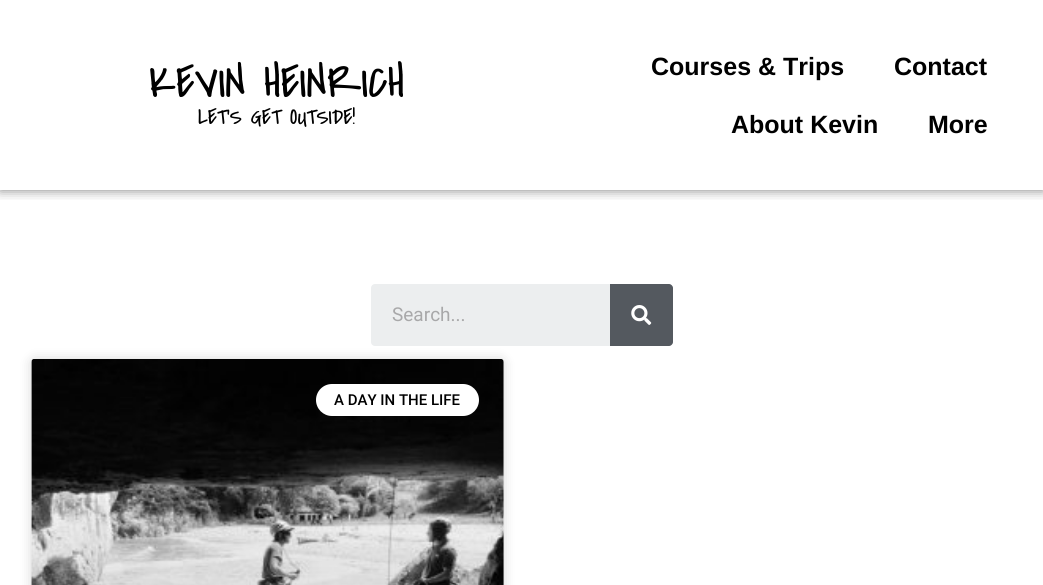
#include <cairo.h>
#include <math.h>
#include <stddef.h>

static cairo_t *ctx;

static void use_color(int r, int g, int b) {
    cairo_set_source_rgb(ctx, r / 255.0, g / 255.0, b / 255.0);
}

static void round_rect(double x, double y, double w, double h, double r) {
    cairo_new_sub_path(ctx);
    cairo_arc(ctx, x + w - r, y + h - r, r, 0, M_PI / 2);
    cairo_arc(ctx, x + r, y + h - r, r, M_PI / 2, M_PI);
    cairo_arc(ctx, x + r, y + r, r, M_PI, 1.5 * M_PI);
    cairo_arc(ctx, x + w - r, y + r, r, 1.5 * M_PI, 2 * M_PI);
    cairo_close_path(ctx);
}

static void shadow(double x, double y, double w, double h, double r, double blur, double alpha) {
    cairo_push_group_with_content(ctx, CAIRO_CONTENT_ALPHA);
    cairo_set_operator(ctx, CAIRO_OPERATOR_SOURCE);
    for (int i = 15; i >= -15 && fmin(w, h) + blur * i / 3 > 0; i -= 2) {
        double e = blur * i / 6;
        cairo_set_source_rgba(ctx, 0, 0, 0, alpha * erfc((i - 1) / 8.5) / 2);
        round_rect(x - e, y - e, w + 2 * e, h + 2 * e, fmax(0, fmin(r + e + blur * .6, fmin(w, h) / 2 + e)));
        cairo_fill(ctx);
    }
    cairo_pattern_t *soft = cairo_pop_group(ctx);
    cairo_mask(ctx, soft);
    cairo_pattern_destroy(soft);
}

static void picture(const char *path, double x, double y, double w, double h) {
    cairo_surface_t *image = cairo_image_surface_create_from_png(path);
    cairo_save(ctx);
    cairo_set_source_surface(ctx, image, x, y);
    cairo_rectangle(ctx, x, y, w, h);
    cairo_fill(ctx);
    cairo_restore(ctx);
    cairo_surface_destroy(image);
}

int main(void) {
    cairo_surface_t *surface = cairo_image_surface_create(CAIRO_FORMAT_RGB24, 1043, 585);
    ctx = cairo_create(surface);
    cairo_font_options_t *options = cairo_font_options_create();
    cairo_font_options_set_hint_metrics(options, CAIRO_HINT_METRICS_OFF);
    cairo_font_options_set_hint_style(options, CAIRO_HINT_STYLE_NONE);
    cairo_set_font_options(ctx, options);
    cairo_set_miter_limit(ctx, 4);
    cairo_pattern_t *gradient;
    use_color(255, 255, 255);
    cairo_paint(ctx);
    cairo_save(ctx);
    cairo_rectangle(ctx, 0, 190, 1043, 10);
    cairo_clip(ctx);
    use_color(0, 0, 0);
    shadow(0, 0, 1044, 190, 0, 6, 0.5);
    cairo_restore(ctx);
    cairo_select_font_face(ctx, "Covered By Your Grace", CAIRO_FONT_SLANT_NORMAL, CAIRO_FONT_WEIGHT_NORMAL);
    cairo_set_font_size(ctx, 46.25);
    use_color(0, 0, 0);
    cairo_move_to(ctx, 149, 97);
    cairo_show_text(ctx, "KEVIN HEINRICH");
    cairo_set_font_size(ctx, 22.5);
    cairo_move_to(ctx, 198, 124);
    cairo_show_text(ctx, "LET'S GET OUTSIDE!");
    cairo_select_font_face(ctx, "Liberation Sans", CAIRO_FONT_SLANT_NORMAL, CAIRO_FONT_WEIGHT_BOLD);
    cairo_set_font_size(ctx, 25);
    cairo_move_to(ctx, 651, 75);
    cairo_show_text(ctx, "Courses & Trips");
    cairo_move_to(ctx, 894, 75);
    cairo_show_text(ctx, "Contact");
    cairo_move_to(ctx, 731, 133);
    cairo_show_text(ctx, "About Kevin");
    cairo_move_to(ctx, 928, 133);
    cairo_show_text(ctx, "More");
    use_color(236, 238, 239);
    round_rect(371, 284, 302, 62, 4);
    cairo_fill(ctx);
    cairo_select_font_face(ctx, "Roboto", CAIRO_FONT_SLANT_NORMAL, CAIRO_FONT_WEIGHT_NORMAL);
    cairo_set_font_size(ctx, 19);
    use_color(168, 168, 169);
    cairo_move_to(ctx, 392, 321);
    cairo_show_text(ctx, "Search...");
    use_color(84, 89, 95);
    cairo_new_path(ctx);
    cairo_move_to(ctx, 610, 284);
    cairo_line_to(ctx, 669, 284);
    cairo_curve_to(ctx, 671, 284, 673, 286, 673, 288);
    cairo_line_to(ctx, 673, 342);
    cairo_curve_to(ctx, 673, 344, 671, 346, 669, 346);
    cairo_line_to(ctx, 610, 346);
    cairo_close_path(ctx);
    cairo_fill(ctx);
    picture("img1.png", 631, 305, 21, 20);
    use_color(0, 0, 0);
    shadow(31, 359, 473, 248, 4, 6, 0.15);
    use_color(255, 255, 255);
    round_rect(31, 359, 473, 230, 4);
    cairo_fill(ctx);
    picture("img2.png", 31, 359, 473, 226);
    gradient = cairo_pattern_create_linear(268, 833, 268, 359);
    cairo_pattern_add_color_stop_rgba(gradient, 0, 0, 0, 0, 0.35);
    cairo_pattern_add_color_stop_rgba(gradient, 0.75, 0, 0, 0, 0);
    cairo_set_source(ctx, gradient);
    cairo_pattern_destroy(gradient);
    cairo_rectangle(ctx, 31, 499, 473, 86);
    cairo_fill(ctx);
    use_color(255, 255, 255);
    round_rect(316, 384, 163, 32, 16);
    cairo_fill(ctx);
    cairo_select_font_face(ctx, "Roboto Medium", CAIRO_FONT_SLANT_NORMAL, CAIRO_FONT_WEIGHT_NORMAL);
    cairo_set_font_size(ctx, 15);
    use_color(0, 0, 0);
    cairo_move_to(ctx, 334, 405);
    cairo_show_text(ctx, "A DAY IN THE LIFE");
    cairo_surface_write_to_png(surface, "result.png");
    cairo_font_options_destroy(options);
    cairo_destroy(ctx);
    cairo_surface_destroy(surface);
    return 0;
}
